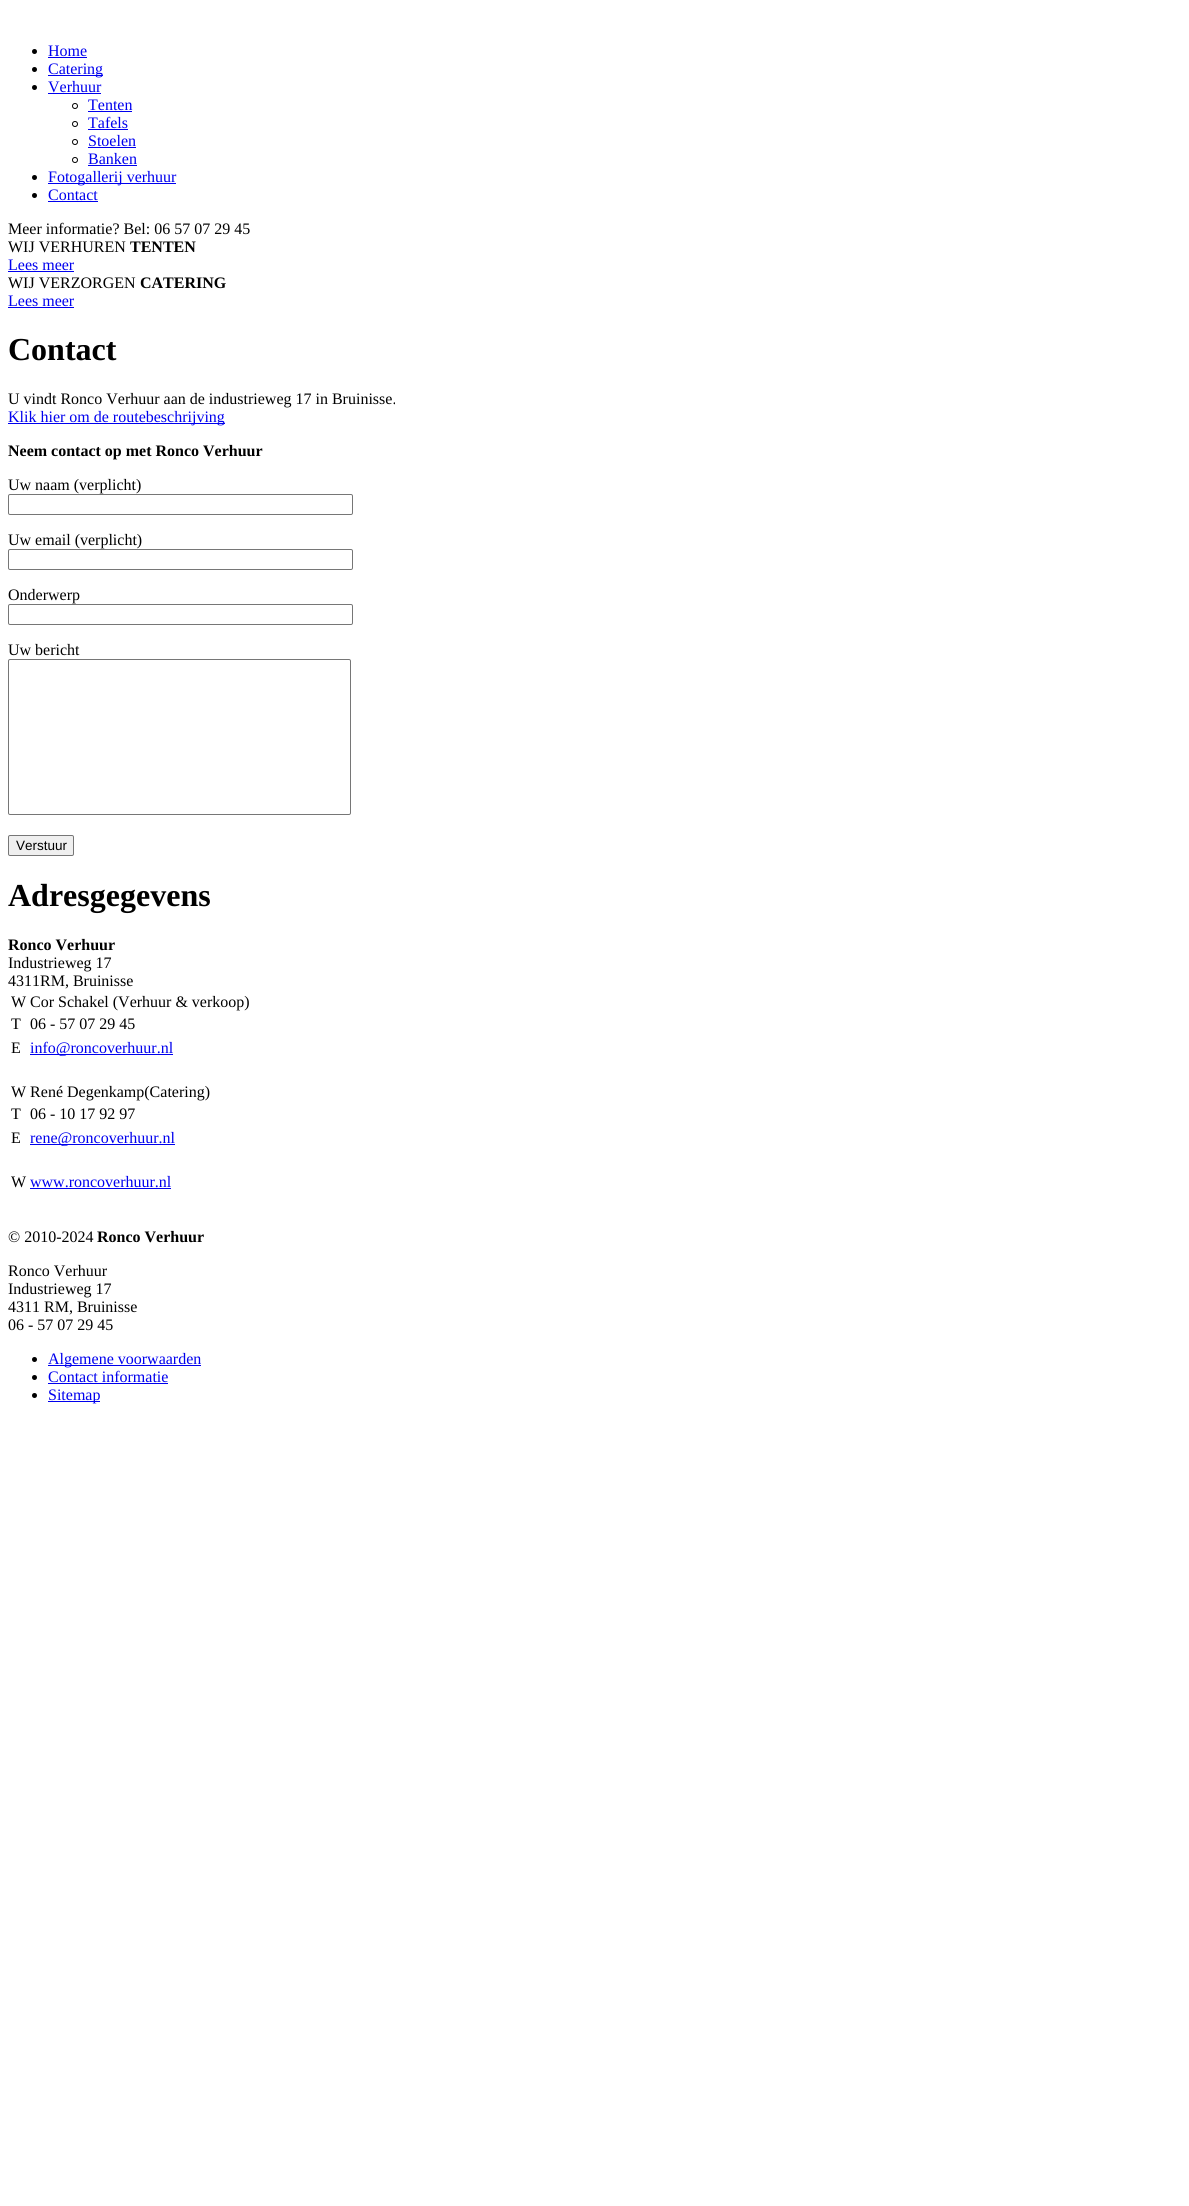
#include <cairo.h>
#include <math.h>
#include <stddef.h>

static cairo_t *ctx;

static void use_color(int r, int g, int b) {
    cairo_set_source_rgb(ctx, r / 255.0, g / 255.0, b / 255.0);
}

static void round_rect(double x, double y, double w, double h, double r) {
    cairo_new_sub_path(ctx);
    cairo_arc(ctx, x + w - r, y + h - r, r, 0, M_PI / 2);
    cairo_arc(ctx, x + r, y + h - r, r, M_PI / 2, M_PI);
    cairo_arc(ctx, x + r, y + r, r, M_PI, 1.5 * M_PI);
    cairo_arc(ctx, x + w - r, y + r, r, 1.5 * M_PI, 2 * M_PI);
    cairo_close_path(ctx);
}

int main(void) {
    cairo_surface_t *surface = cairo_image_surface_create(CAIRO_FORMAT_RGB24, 1189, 2206);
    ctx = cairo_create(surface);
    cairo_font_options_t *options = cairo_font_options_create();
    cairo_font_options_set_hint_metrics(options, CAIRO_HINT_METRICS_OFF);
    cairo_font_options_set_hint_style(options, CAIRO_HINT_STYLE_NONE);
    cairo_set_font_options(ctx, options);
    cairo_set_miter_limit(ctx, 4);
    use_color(255, 255, 255);
    cairo_paint(ctx);
    use_color(0, 0, 0);
    cairo_arc(ctx, 34.5, 51.5, 2.5, 0, 2 * M_PI);
    cairo_fill(ctx);
    cairo_select_font_face(ctx, "Liberation Serif", CAIRO_FONT_SLANT_NORMAL, CAIRO_FONT_WEIGHT_NORMAL);
    cairo_set_font_size(ctx, 16);
    use_color(0, 0, 238);
    cairo_move_to(ctx, 48, 56);
    cairo_show_text(ctx, "Home");
    cairo_rectangle(ctx, 48, 57, 39, 1);
    cairo_fill(ctx);
    use_color(0, 0, 0);
    cairo_arc(ctx, 34.5, 69.5, 2.5, 0, 2 * M_PI);
    cairo_fill(ctx);
    use_color(0, 0, 238);
    cairo_rectangle(ctx, 48, 75, 55, 1);
    cairo_fill(ctx);
    cairo_move_to(ctx, 48, 74);
    cairo_show_text(ctx, "Catering");
    use_color(0, 0, 0);
    cairo_new_path(ctx);
    cairo_arc(ctx, 34.5, 87.5, 2.5, 0, 2 * M_PI);
    cairo_fill(ctx);
    use_color(0, 0, 238);
    cairo_move_to(ctx, 48, 92);
    cairo_show_text(ctx, "Verhuur");
    cairo_rectangle(ctx, 48, 93, 53, 1);
    cairo_fill(ctx);
    cairo_arc(ctx, 75, 106, 2.5, 0, 2 * M_PI);
    use_color(0, 0, 0);
    cairo_set_line_width(ctx, 1);
    cairo_stroke(ctx);
    use_color(0, 0, 238);
    cairo_move_to(ctx, 88, 110);
    cairo_show_text(ctx, "Tenten");
    cairo_rectangle(ctx, 88, 111, 44, 1);
    cairo_fill(ctx);
    cairo_arc(ctx, 75, 124, 2.5, 0, 2 * M_PI);
    use_color(0, 0, 0);
    cairo_stroke(ctx);
    use_color(0, 0, 238);
    cairo_move_to(ctx, 88, 128);
    cairo_show_text(ctx, "Tafels");
    cairo_rectangle(ctx, 88, 129, 40, 1);
    cairo_fill(ctx);
    cairo_arc(ctx, 75, 142, 2.5, 0, 2 * M_PI);
    use_color(0, 0, 0);
    cairo_stroke(ctx);
    use_color(0, 0, 238);
    cairo_move_to(ctx, 88, 146);
    cairo_show_text(ctx, "Stoelen");
    cairo_rectangle(ctx, 88, 147, 48, 1);
    cairo_fill(ctx);
    cairo_arc(ctx, 75, 160, 2.5, 0, 2 * M_PI);
    use_color(0, 0, 0);
    cairo_stroke(ctx);
    use_color(0, 0, 238);
    cairo_move_to(ctx, 88, 164);
    cairo_show_text(ctx, "Banken");
    cairo_rectangle(ctx, 88, 165, 49, 1);
    cairo_fill(ctx);
    use_color(0, 0, 0);
    cairo_arc(ctx, 34.5, 177.5, 2.5, 0, 2 * M_PI);
    cairo_fill(ctx);
    use_color(0, 0, 238);
    cairo_rectangle(ctx, 48, 183, 128, 1);
    cairo_fill(ctx);
    cairo_move_to(ctx, 48, 182);
    cairo_show_text(ctx, "Fotogallerij verhuur");
    use_color(0, 0, 0);
    cairo_new_path(ctx);
    cairo_arc(ctx, 34.5, 195.5, 2.5, 0, 2 * M_PI);
    cairo_fill(ctx);
    use_color(0, 0, 238);
    cairo_move_to(ctx, 48, 200);
    cairo_show_text(ctx, "Contact");
    cairo_rectangle(ctx, 48, 201, 50, 1);
    cairo_fill(ctx);
    use_color(0, 0, 0);
    cairo_move_to(ctx, 8, 234);
    cairo_show_text(ctx, "Meer informatie? Bel: 06 57 07 29 45");
    cairo_move_to(ctx, 8, 252);
    cairo_show_text(ctx, "WIJ VERHUREN");
    cairo_select_font_face(ctx, "Liberation Serif", CAIRO_FONT_SLANT_NORMAL, CAIRO_FONT_WEIGHT_BOLD);
    cairo_move_to(ctx, 130, 252);
    cairo_show_text(ctx, "TENTEN");
    cairo_select_font_face(ctx, "Liberation Serif", CAIRO_FONT_SLANT_NORMAL, CAIRO_FONT_WEIGHT_NORMAL);
    use_color(0, 0, 238);
    cairo_move_to(ctx, 8, 270);
    cairo_show_text(ctx, "Lees meer");
    cairo_rectangle(ctx, 8, 271, 66, 1);
    cairo_fill(ctx);
    use_color(0, 0, 0);
    cairo_move_to(ctx, 8, 288);
    cairo_show_text(ctx, "WIJ VERZORGEN");
    cairo_select_font_face(ctx, "Liberation Serif", CAIRO_FONT_SLANT_NORMAL, CAIRO_FONT_WEIGHT_BOLD);
    cairo_move_to(ctx, 140, 288);
    cairo_show_text(ctx, "CATERING");
    cairo_select_font_face(ctx, "Liberation Serif", CAIRO_FONT_SLANT_NORMAL, CAIRO_FONT_WEIGHT_NORMAL);
    use_color(0, 0, 238);
    cairo_move_to(ctx, 8, 306);
    cairo_show_text(ctx, "Lees meer");
    cairo_rectangle(ctx, 8, 307, 66, 1);
    cairo_fill(ctx);
    cairo_select_font_face(ctx, "Liberation Serif", CAIRO_FONT_SLANT_NORMAL, CAIRO_FONT_WEIGHT_BOLD);
    cairo_set_font_size(ctx, 32);
    use_color(0, 0, 0);
    cairo_move_to(ctx, 8, 360);
    cairo_show_text(ctx, "Contact");
    cairo_select_font_face(ctx, "Liberation Serif", CAIRO_FONT_SLANT_NORMAL, CAIRO_FONT_WEIGHT_NORMAL);
    cairo_set_font_size(ctx, 16);
    cairo_move_to(ctx, 8, 404);
    cairo_show_text(ctx, "U vindt Ronco Verhuur aan de industrieweg 17 in Bruinisse.");
    use_color(0, 0, 238);
    cairo_rectangle(ctx, 8, 423, 217, 1);
    cairo_fill(ctx);
    cairo_move_to(ctx, 8, 422);
    cairo_show_text(ctx, "Klik hier om de routebeschrijving");
    cairo_select_font_face(ctx, "Liberation Serif", CAIRO_FONT_SLANT_NORMAL, CAIRO_FONT_WEIGHT_BOLD);
    use_color(0, 0, 0);
    cairo_move_to(ctx, 8, 456);
    cairo_show_text(ctx, "Neem contact op met Ronco Verhuur");
    cairo_select_font_face(ctx, "Liberation Serif", CAIRO_FONT_SLANT_NORMAL, CAIRO_FONT_WEIGHT_NORMAL);
    cairo_move_to(ctx, 8, 490);
    cairo_show_text(ctx, "Uw naam (verplicht)");
    round_rect(8.5, 494.5, 344, 20, 1.5);
    use_color(118, 118, 118);
    cairo_stroke(ctx);
    use_color(0, 0, 0);
    cairo_move_to(ctx, 8, 545);
    cairo_show_text(ctx, "Uw email (verplicht)");
    round_rect(8.5, 549.5, 344, 20, 1.5);
    use_color(118, 118, 118);
    cairo_stroke(ctx);
    use_color(0, 0, 0);
    cairo_move_to(ctx, 8, 600);
    cairo_show_text(ctx, "Onderwerp");
    round_rect(8.5, 604.5, 344, 20, 1.5);
    use_color(118, 118, 118);
    cairo_stroke(ctx);
    use_color(0, 0, 0);
    cairo_move_to(ctx, 8, 655);
    cairo_show_text(ctx, "Uw bericht");
    round_rect(8.5, 659.5, 342, 155, 1.5);
    use_color(118, 118, 118);
    cairo_stroke(ctx);
    use_color(239, 239, 239);
    round_rect(8.5, 835.5, 65, 20, 1.5);
    cairo_fill_preserve(ctx);
    use_color(118, 118, 118);
    cairo_stroke(ctx);
    cairo_select_font_face(ctx, "Liberation Sans", CAIRO_FONT_SLANT_NORMAL, CAIRO_FONT_WEIGHT_NORMAL);
    cairo_set_font_size(ctx, 13.5);
    use_color(0, 0, 0);
    cairo_move_to(ctx, 16, 850);
    cairo_show_text(ctx, "Verstuur");
    cairo_select_font_face(ctx, "Liberation Serif", CAIRO_FONT_SLANT_NORMAL, CAIRO_FONT_WEIGHT_BOLD);
    cairo_set_font_size(ctx, 32);
    cairo_move_to(ctx, 8, 906);
    cairo_show_text(ctx, "Adresgegevens");
    cairo_set_font_size(ctx, 16);
    cairo_move_to(ctx, 8, 950);
    cairo_show_text(ctx, "Ronco Verhuur");
    cairo_select_font_face(ctx, "Liberation Serif", CAIRO_FONT_SLANT_NORMAL, CAIRO_FONT_WEIGHT_NORMAL);
    cairo_move_to(ctx, 8, 968);
    cairo_show_text(ctx, "Industrieweg 17");
    cairo_move_to(ctx, 8, 986);
    cairo_show_text(ctx, "4311RM, Bruinisse");
    cairo_move_to(ctx, 11, 1007);
    cairo_show_text(ctx, "W Cor Schakel (Verhuur & verkoop)");
    cairo_move_to(ctx, 11, 1029);
    cairo_show_text(ctx, "T");
    cairo_move_to(ctx, 30, 1029);
    cairo_show_text(ctx, "06 - 57 07 29 45");
    cairo_move_to(ctx, 11, 1053);
    cairo_show_text(ctx, "E");
    use_color(0, 0, 238);
    cairo_rectangle(ctx, 30, 1054, 143, 1);
    cairo_fill(ctx);
    cairo_move_to(ctx, 30, 1053);
    cairo_show_text(ctx, "info@roncoverhuur.nl");
    use_color(0, 0, 0);
    cairo_move_to(ctx, 11, 1097);
    cairo_show_text(ctx, "W René Degenkamp(Catering)");
    cairo_move_to(ctx, 11, 1119);
    cairo_show_text(ctx, "T");
    cairo_move_to(ctx, 30, 1119);
    cairo_show_text(ctx, "06 - 10 17 92 97");
    cairo_move_to(ctx, 11, 1143);
    cairo_show_text(ctx, "E");
    use_color(0, 0, 238);
    cairo_rectangle(ctx, 30, 1144, 145, 1);
    cairo_fill(ctx);
    cairo_move_to(ctx, 30, 1143);
    cairo_show_text(ctx, "rene@roncoverhuur.nl");
    use_color(0, 0, 0);
    cairo_move_to(ctx, 11, 1187);
    cairo_show_text(ctx, "W");
    use_color(0, 0, 238);
    cairo_move_to(ctx, 30, 1187);
    cairo_show_text(ctx, "www.roncoverhuur.nl");
    cairo_rectangle(ctx, 30, 1188, 141, 1);
    cairo_fill(ctx);
    use_color(0, 0, 0);
    cairo_move_to(ctx, 8, 1242);
    cairo_show_text(ctx, "© 2010-2024");
    cairo_select_font_face(ctx, "Liberation Serif", CAIRO_FONT_SLANT_NORMAL, CAIRO_FONT_WEIGHT_BOLD);
    cairo_move_to(ctx, 97, 1242);
    cairo_show_text(ctx, "Ronco Verhuur");
    cairo_select_font_face(ctx, "Liberation Serif", CAIRO_FONT_SLANT_NORMAL, CAIRO_FONT_WEIGHT_NORMAL);
    cairo_move_to(ctx, 8, 1276);
    cairo_show_text(ctx, "Ronco Verhuur");
    cairo_move_to(ctx, 8, 1294);
    cairo_show_text(ctx, "Industrieweg 17");
    cairo_move_to(ctx, 8, 1312);
    cairo_show_text(ctx, "4311 RM, Bruinisse");
    cairo_move_to(ctx, 8, 1330);
    cairo_show_text(ctx, "06 - 57 07 29 45");
    cairo_new_path(ctx);
    cairo_arc(ctx, 34.5, 1359.5, 2.5, 0, 2 * M_PI);
    cairo_fill(ctx);
    use_color(0, 0, 238);
    cairo_rectangle(ctx, 48, 1365, 153, 1);
    cairo_fill(ctx);
    cairo_move_to(ctx, 48, 1364);
    cairo_show_text(ctx, "Algemene voorwaarden");
    use_color(0, 0, 0);
    cairo_new_path(ctx);
    cairo_arc(ctx, 34.5, 1377.5, 2.5, 0, 2 * M_PI);
    cairo_fill(ctx);
    use_color(0, 0, 238);
    cairo_move_to(ctx, 48, 1382);
    cairo_show_text(ctx, "Contact informatie");
    cairo_rectangle(ctx, 48, 1383, 120, 1);
    cairo_fill(ctx);
    use_color(0, 0, 0);
    cairo_arc(ctx, 34.5, 1395.5, 2.5, 0, 2 * M_PI);
    cairo_fill(ctx);
    use_color(0, 0, 238);
    cairo_rectangle(ctx, 48, 1401, 52, 1);
    cairo_fill(ctx);
    cairo_move_to(ctx, 48, 1400);
    cairo_show_text(ctx, "Sitemap");
    cairo_surface_write_to_png(surface, "result.png");
    cairo_font_options_destroy(options);
    cairo_destroy(ctx);
    cairo_surface_destroy(surface);
    return 0;
}
